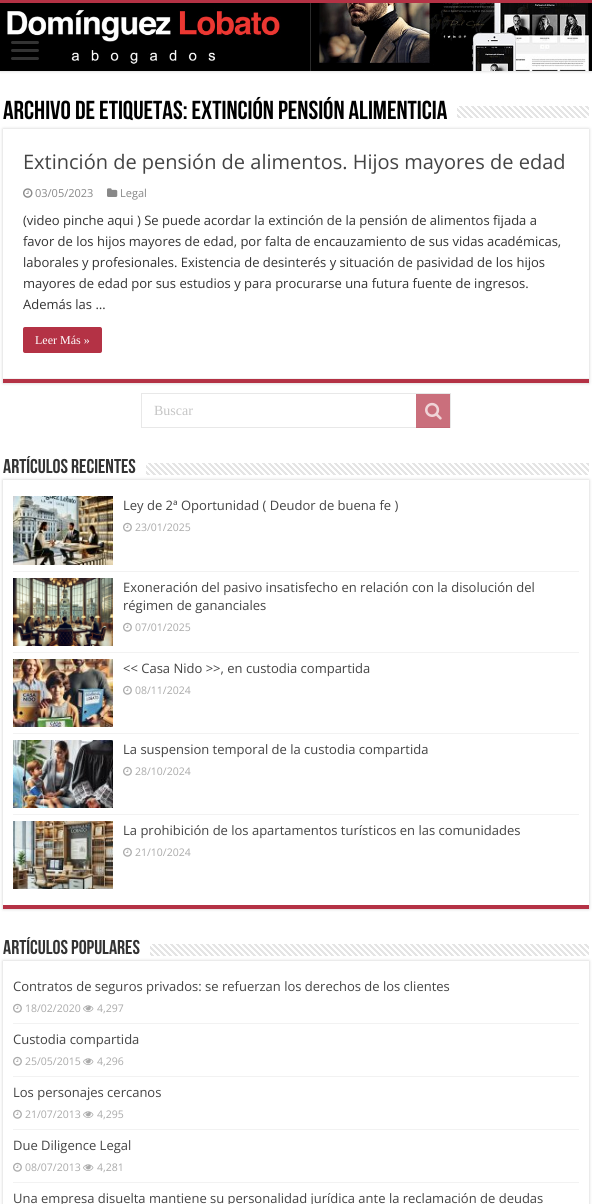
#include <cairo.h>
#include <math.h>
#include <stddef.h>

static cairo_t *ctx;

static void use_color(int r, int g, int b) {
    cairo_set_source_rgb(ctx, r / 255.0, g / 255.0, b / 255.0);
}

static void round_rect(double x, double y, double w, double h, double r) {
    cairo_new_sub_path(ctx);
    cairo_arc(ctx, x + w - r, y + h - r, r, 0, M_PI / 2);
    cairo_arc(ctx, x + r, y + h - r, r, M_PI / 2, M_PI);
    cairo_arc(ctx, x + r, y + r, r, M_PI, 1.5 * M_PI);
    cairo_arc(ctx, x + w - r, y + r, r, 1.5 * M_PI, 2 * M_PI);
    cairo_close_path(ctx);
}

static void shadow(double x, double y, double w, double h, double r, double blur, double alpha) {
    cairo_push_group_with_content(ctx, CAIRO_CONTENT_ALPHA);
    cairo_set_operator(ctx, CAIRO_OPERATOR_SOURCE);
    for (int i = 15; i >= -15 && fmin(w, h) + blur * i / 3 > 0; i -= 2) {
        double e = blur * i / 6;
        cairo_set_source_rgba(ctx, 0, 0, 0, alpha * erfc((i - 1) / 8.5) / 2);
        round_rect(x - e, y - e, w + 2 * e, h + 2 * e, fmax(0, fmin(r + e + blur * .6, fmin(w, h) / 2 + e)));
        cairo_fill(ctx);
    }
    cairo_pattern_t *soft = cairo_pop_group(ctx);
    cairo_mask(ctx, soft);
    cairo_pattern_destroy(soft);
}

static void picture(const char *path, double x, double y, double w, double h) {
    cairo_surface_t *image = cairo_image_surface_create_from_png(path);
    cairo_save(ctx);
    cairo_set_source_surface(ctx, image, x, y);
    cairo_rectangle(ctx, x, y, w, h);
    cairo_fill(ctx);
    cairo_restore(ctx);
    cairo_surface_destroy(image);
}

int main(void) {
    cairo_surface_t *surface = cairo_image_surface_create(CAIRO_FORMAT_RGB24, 592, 1204);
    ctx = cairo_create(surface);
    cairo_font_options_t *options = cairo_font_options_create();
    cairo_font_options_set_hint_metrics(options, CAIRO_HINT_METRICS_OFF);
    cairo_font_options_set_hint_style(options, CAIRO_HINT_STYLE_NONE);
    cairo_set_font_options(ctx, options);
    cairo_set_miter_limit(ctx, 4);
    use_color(255, 255, 255);
    cairo_paint(ctx);
    use_color(202, 202, 202);
    shadow(0, 0, 592, 71, 0, 1.5, 1);
    use_color(0, 0, 0);
    cairo_rectangle(ctx, 0, 3, 592, 68);
    cairo_fill(ctx);
    use_color(180, 50, 69);
    cairo_rectangle(ctx, 0, 0, 592, 3);
    cairo_fill(ctx);
    picture("img1.png", 7, 3, 582, 68);
    use_color(51, 51, 51);
    round_rect(11, 41, 28, 3, 1.5);
    cairo_fill(ctx);
    round_rect(11, 49, 28, 3, 1.5);
    cairo_fill(ctx);
    round_rect(11, 57, 28, 3, 1.5);
    cairo_fill(ctx);
    cairo_select_font_face(ctx, "Bebas Neue", CAIRO_FONT_SLANT_NORMAL, CAIRO_FONT_WEIGHT_BOLD);
    cairo_set_font_size(ctx, 26);
    use_color(0, 0, 0);
    cairo_move_to(ctx, 3, 119);
    cairo_show_text(ctx, "Archivo de Etiquetas: extinción pensión alimenticia");
    picture("img2.png", 457, 106, 132, 12);
    cairo_save(ctx);
    cairo_set_fill_rule(ctx, CAIRO_FILL_RULE_EVEN_ODD);
    cairo_new_path(ctx);
    cairo_move_to(ctx, 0, 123);
    cairo_line_to(ctx, 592, 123);
    cairo_line_to(ctx, 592, 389);
    cairo_line_to(ctx, 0, 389);
    cairo_close_path(ctx);
    cairo_move_to(ctx, 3, 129);
    cairo_line_to(ctx, 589, 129);
    cairo_line_to(ctx, 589, 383);
    cairo_line_to(ctx, 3, 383);
    cairo_close_path(ctx);
    cairo_clip(ctx);
    use_color(202, 202, 202);
    shadow(3, 129, 586, 254, 0, 1.5, 1);
    cairo_restore(ctx);
    use_color(180, 50, 69);
    cairo_rectangle(ctx, 3, 379, 586, 4);
    cairo_fill(ctx);
    use_color(242, 242, 242);
    cairo_rectangle(ctx, 3, 378, 586, 1);
    cairo_fill(ctx);
    cairo_select_font_face(ctx, "Open Sans", CAIRO_FONT_SLANT_NORMAL, CAIRO_FONT_WEIGHT_NORMAL);
    cairo_set_font_size(ctx, 20);
    use_color(68, 68, 68);
    cairo_move_to(ctx, 23, 169);
    cairo_show_text(ctx, "Extinción de pensión de alimentos. Hijos mayores de edad");
    picture("img3.png", 23, 188, 10, 10);
    cairo_set_font_size(ctx, 11);
    use_color(136, 136, 136);
    cairo_move_to(ctx, 35, 197);
    cairo_show_text(ctx, "03/05/2023");
    picture("img4.png", 107, 188, 11, 9);
    cairo_move_to(ctx, 120, 197);
    cairo_show_text(ctx, "Legal");
    cairo_set_font_size(ctx, 13);
    use_color(51, 51, 51);
    cairo_move_to(ctx, 23, 225);
    cairo_show_text(ctx, "(video pinche aqui ) Se puede acordar la extinción de la pensión de alimentos fijada a");
    cairo_move_to(ctx, 23, 246);
    cairo_show_text(ctx, "favor de los hijos mayores de edad, por falta de encauzamiento de sus vidas académicas,");
    cairo_move_to(ctx, 23, 267);
    cairo_show_text(ctx, "laborales y profesionales. Existencia de desinterés y situación de pasividad de los hijos");
    cairo_move_to(ctx, 23, 288);
    cairo_show_text(ctx, "mayores de edad por sus estudios y para procurarse una futura fuente de ingresos.");
    cairo_move_to(ctx, 23, 309);
    cairo_show_text(ctx, "Además las …");
    use_color(180, 50, 69);
    round_rect(23, 327, 79, 26, 2);
    cairo_fill(ctx);
    cairo_select_font_face(ctx, "Liberation Serif", CAIRO_FONT_SLANT_NORMAL, CAIRO_FONT_WEIGHT_NORMAL);
    cairo_set_font_size(ctx, 12);
    use_color(255, 255, 255);
    cairo_move_to(ctx, 35, 344);
    cairo_show_text(ctx, "Leer Más »");
    cairo_rectangle(ctx, 141.5, 393.5, 309, 34);
    use_color(232, 232, 232);
    cairo_set_line_width(ctx, 1);
    cairo_stroke(ctx);
    cairo_set_font_size(ctx, 14);
    use_color(197, 197, 197);
    cairo_move_to(ctx, 154, 415);
    cairo_show_text(ctx, "Buscar");
    cairo_set_source_rgba(ctx, 0.706, 0.196, 0.271, 0.7);
    cairo_rectangle(ctx, 416, 394, 34, 34);
    cairo_fill(ctx);
    picture("img5.png", 425, 402, 17, 18);
    cairo_select_font_face(ctx, "Bebas Neue", CAIRO_FONT_SLANT_NORMAL, CAIRO_FONT_WEIGHT_BOLD);
    cairo_set_font_size(ctx, 20);
    use_color(51, 51, 51);
    cairo_move_to(ctx, 3, 473);
    cairo_show_text(ctx, "Artículos recientes");
    cairo_save(ctx);
    cairo_set_fill_rule(ctx, CAIRO_FILL_RULE_EVEN_ODD);
    cairo_new_path(ctx);
    cairo_move_to(ctx, 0, 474);
    cairo_line_to(ctx, 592, 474);
    cairo_line_to(ctx, 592, 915);
    cairo_line_to(ctx, 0, 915);
    cairo_close_path(ctx);
    cairo_move_to(ctx, 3, 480);
    cairo_line_to(ctx, 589, 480);
    cairo_line_to(ctx, 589, 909);
    cairo_line_to(ctx, 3, 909);
    cairo_close_path(ctx);
    cairo_clip(ctx);
    use_color(202, 202, 202);
    shadow(3, 480, 586, 429, 0, 1.5, 1);
    cairo_restore(ctx);
    picture("img6.png", 146, 463, 443, 12);
    use_color(180, 50, 69);
    cairo_rectangle(ctx, 3, 905, 586, 4);
    cairo_fill(ctx);
    use_color(242, 242, 242);
    cairo_rectangle(ctx, 13, 571, 566, 1);
    cairo_fill(ctx);
    picture("img7.png", 13, 496, 100, 69);
    cairo_select_font_face(ctx, "Open Sans", CAIRO_FONT_SLANT_NORMAL, CAIRO_FONT_WEIGHT_NORMAL);
    cairo_set_font_size(ctx, 13);
    use_color(68, 68, 68);
    cairo_move_to(ctx, 123, 510);
    cairo_show_text(ctx, "Ley de 2ª Oportunidad ( Deudor de buena fe )");
    picture("img8.png", 123, 522, 9, 10);
    cairo_set_font_size(ctx, 10.5);
    use_color(170, 170, 170);
    cairo_move_to(ctx, 135, 531);
    cairo_show_text(ctx, "23/01/2025");
    use_color(242, 242, 242);
    cairo_rectangle(ctx, 13, 652, 566, 1);
    cairo_fill(ctx);
    picture("img9.png", 13, 578, 100, 68);
    cairo_set_font_size(ctx, 13);
    use_color(68, 68, 68);
    cairo_move_to(ctx, 123, 592);
    cairo_show_text(ctx, "Exoneración del pasivo insatisfecho en relación con la disolución del");
    cairo_move_to(ctx, 123, 610);
    cairo_show_text(ctx, "régimen de gananciales");
    picture("img8.png", 123, 622, 9, 10);
    cairo_set_font_size(ctx, 10.5);
    use_color(170, 170, 170);
    cairo_move_to(ctx, 135, 631);
    cairo_show_text(ctx, "07/01/2025");
    use_color(242, 242, 242);
    cairo_rectangle(ctx, 13, 733, 566, 1);
    cairo_fill(ctx);
    picture("img10.png", 13, 659, 100, 68);
    cairo_set_font_size(ctx, 13);
    use_color(68, 68, 68);
    cairo_move_to(ctx, 123, 673);
    cairo_show_text(ctx, "<< Casa Nido >>, en custodia compartida");
    picture("img8.png", 123, 685, 9, 10);
    cairo_set_font_size(ctx, 10.5);
    use_color(170, 170, 170);
    cairo_move_to(ctx, 135, 694);
    cairo_show_text(ctx, "08/11/2024");
    use_color(242, 242, 242);
    cairo_rectangle(ctx, 13, 814, 566, 1);
    cairo_fill(ctx);
    picture("img11.png", 13, 740, 100, 68);
    cairo_set_font_size(ctx, 13);
    use_color(68, 68, 68);
    cairo_move_to(ctx, 123, 754);
    cairo_show_text(ctx, "La suspension temporal de la custodia compartida");
    picture("img8.png", 123, 766, 9, 10);
    cairo_set_font_size(ctx, 10.5);
    use_color(170, 170, 170);
    cairo_move_to(ctx, 135, 775);
    cairo_show_text(ctx, "28/10/2024");
    picture("img12.png", 13, 821, 100, 68);
    cairo_set_font_size(ctx, 13);
    use_color(68, 68, 68);
    cairo_move_to(ctx, 123, 835);
    cairo_show_text(ctx, "La prohibición de los apartamentos turísticos en las comunidades");
    picture("img8.png", 123, 847, 9, 10);
    cairo_set_font_size(ctx, 10.5);
    use_color(170, 170, 170);
    cairo_move_to(ctx, 135, 856);
    cairo_show_text(ctx, "21/10/2024");
    cairo_select_font_face(ctx, "Bebas Neue", CAIRO_FONT_SLANT_NORMAL, CAIRO_FONT_WEIGHT_BOLD);
    cairo_set_font_size(ctx, 20);
    use_color(51, 51, 51);
    cairo_move_to(ctx, 3, 954);
    cairo_show_text(ctx, "Artículos Populares");
    cairo_save(ctx);
    cairo_set_fill_rule(ctx, CAIRO_FILL_RULE_EVEN_ODD);
    cairo_new_path(ctx);
    cairo_move_to(ctx, 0, 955);
    cairo_line_to(ctx, 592, 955);
    cairo_line_to(ctx, 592, 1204);
    cairo_line_to(ctx, 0, 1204);
    cairo_close_path(ctx);
    cairo_move_to(ctx, 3, 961);
    cairo_line_to(ctx, 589, 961);
    cairo_line_to(ctx, 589, 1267);
    cairo_line_to(ctx, 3, 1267);
    cairo_close_path(ctx);
    cairo_clip(ctx);
    use_color(202, 202, 202);
    shadow(3, 961, 586, 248, 0, 1.5, 1);
    cairo_restore(ctx);
    picture("img13.png", 150, 944, 439, 12);
    use_color(242, 242, 242);
    cairo_rectangle(ctx, 13, 1023, 566, 1);
    cairo_fill(ctx);
    cairo_select_font_face(ctx, "Open Sans", CAIRO_FONT_SLANT_NORMAL, CAIRO_FONT_WEIGHT_NORMAL);
    cairo_set_font_size(ctx, 13);
    use_color(68, 68, 68);
    cairo_move_to(ctx, 13, 991);
    cairo_show_text(ctx, "Contratos de seguros privados: se refuerzan los derechos de los clientes");
    picture("img8.png", 13, 1003, 9, 10);
    cairo_set_font_size(ctx, 10.5);
    use_color(170, 170, 170);
    cairo_move_to(ctx, 25, 1012);
    cairo_show_text(ctx, "18/02/2020");
    picture("img14.png", 83, 1005, 11, 7);
    cairo_move_to(ctx, 97, 1012);
    cairo_show_text(ctx, "4,297");
    use_color(242, 242, 242);
    cairo_rectangle(ctx, 13, 1076, 566, 1);
    cairo_fill(ctx);
    cairo_set_font_size(ctx, 13);
    use_color(68, 68, 68);
    cairo_move_to(ctx, 13, 1044);
    cairo_show_text(ctx, "Custodia compartida");
    picture("img8.png", 13, 1056, 9, 10);
    cairo_set_font_size(ctx, 10.5);
    use_color(170, 170, 170);
    cairo_move_to(ctx, 25, 1065);
    cairo_show_text(ctx, "25/05/2015");
    picture("img14.png", 83, 1058, 11, 7);
    cairo_move_to(ctx, 97, 1065);
    cairo_show_text(ctx, "4,296");
    use_color(242, 242, 242);
    cairo_rectangle(ctx, 13, 1129, 566, 1);
    cairo_fill(ctx);
    cairo_set_font_size(ctx, 13);
    use_color(68, 68, 68);
    cairo_move_to(ctx, 13, 1097);
    cairo_show_text(ctx, "Los personajes cercanos");
    picture("img8.png", 13, 1109, 9, 10);
    cairo_set_font_size(ctx, 10.5);
    use_color(170, 170, 170);
    cairo_move_to(ctx, 25, 1118);
    cairo_show_text(ctx, "21/07/2013");
    picture("img14.png", 83, 1111, 11, 7);
    cairo_move_to(ctx, 97, 1118);
    cairo_show_text(ctx, "4,295");
    use_color(242, 242, 242);
    cairo_rectangle(ctx, 13, 1182, 566, 1);
    cairo_fill(ctx);
    cairo_set_font_size(ctx, 13);
    use_color(68, 68, 68);
    cairo_move_to(ctx, 13, 1150);
    cairo_show_text(ctx, "Due Diligence Legal");
    picture("img8.png", 13, 1162, 9, 10);
    cairo_set_font_size(ctx, 10.5);
    use_color(170, 170, 170);
    cairo_move_to(ctx, 25, 1171);
    cairo_show_text(ctx, "08/07/2013");
    picture("img14.png", 83, 1164, 11, 7);
    cairo_move_to(ctx, 97, 1171);
    cairo_show_text(ctx, "4,281");
    cairo_set_font_size(ctx, 13);
    use_color(68, 68, 68);
    cairo_move_to(ctx, 13, 1203);
    cairo_show_text(ctx, "Una empresa disuelta mantiene su personalidad jurídica ante la reclamación de deudas");
    cairo_surface_write_to_png(surface, "result.png");
    cairo_font_options_destroy(options);
    cairo_destroy(ctx);
    cairo_surface_destroy(surface);
    return 0;
}
